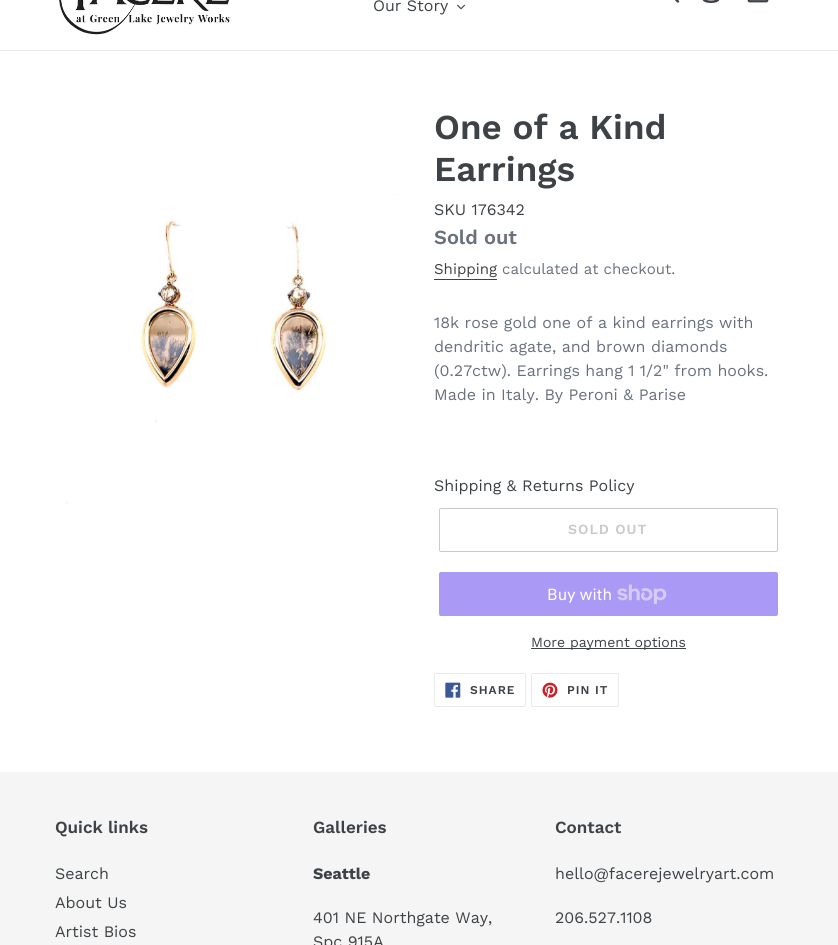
#include <cairo.h>
#include <math.h>
#include <stddef.h>

static cairo_t *ctx;

static void use_color(int r, int g, int b) {
    cairo_set_source_rgb(ctx, r / 255.0, g / 255.0, b / 255.0);
}

static void spaced_text(double x, double y, const char *s, double letter, double word) {
    cairo_move_to(ctx, x, y);
    while (*s) {
        char ch[5] = {0};
        int n = 0;
        do ch[n++] = *s++; while ((*s & 0xC0) == 0x80);
        cairo_show_text(ctx, ch);
        cairo_rel_move_to(ctx, letter + word * (*ch == ' '), 0);
    }
}

static void round_rect(double x, double y, double w, double h, double r) {
    cairo_new_sub_path(ctx);
    cairo_arc(ctx, x + w - r, y + h - r, r, 0, M_PI / 2);
    cairo_arc(ctx, x + r, y + h - r, r, M_PI / 2, M_PI);
    cairo_arc(ctx, x + r, y + r, r, M_PI, 1.5 * M_PI);
    cairo_arc(ctx, x + w - r, y + r, r, 1.5 * M_PI, 2 * M_PI);
    cairo_close_path(ctx);
}

static void picture(const char *path, double x, double y, double w, double h) {
    cairo_surface_t *image = cairo_image_surface_create_from_png(path);
    cairo_save(ctx);
    cairo_set_source_surface(ctx, image, x, y);
    cairo_rectangle(ctx, x, y, w, h);
    cairo_fill(ctx);
    cairo_restore(ctx);
    cairo_surface_destroy(image);
}

int main(void) {
    cairo_surface_t *surface = cairo_image_surface_create(CAIRO_FORMAT_RGB24, 838, 945);
    ctx = cairo_create(surface);
    cairo_font_options_t *options = cairo_font_options_create();
    cairo_font_options_set_hint_metrics(options, CAIRO_HINT_METRICS_OFF);
    cairo_font_options_set_hint_style(options, CAIRO_HINT_STYLE_NONE);
    cairo_set_font_options(ctx, options);
    cairo_set_miter_limit(ctx, 4);
    use_color(255, 255, 255);
    cairo_paint(ctx);
    use_color(232, 233, 235);
    cairo_rectangle(ctx, 0, 50, 838, 1);
    cairo_fill(ctx);
    picture("img1.png", 59, 0, 171, 35);
    cairo_select_font_face(ctx, "Work Sans", CAIRO_FONT_SLANT_NORMAL, CAIRO_FONT_WEIGHT_NORMAL);
    cairo_set_font_size(ctx, 16);
    use_color(61, 66, 70);
    cairo_move_to(ctx, 373, 11);
    cairo_show_text(ctx, "Our Story");
    picture("img2.png", 457, 4, 8, 6);
    picture("img3.png", 675, 0, 5, 3);
    picture("img4.png", 702, 0, 18, 3);
    picture("img5.png", 747, 0, 22, 3);
    picture("img6.png", 66, 194, 331, 310);
    cairo_select_font_face(ctx, "Work Sans SemiBold", CAIRO_FONT_SLANT_NORMAL, CAIRO_FONT_WEIGHT_NORMAL);
    cairo_set_font_size(ctx, 35);
    cairo_move_to(ctx, 434, 139);
    cairo_show_text(ctx, "One of a Kind");
    cairo_move_to(ctx, 434, 181);
    cairo_show_text(ctx, "Earrings");
    cairo_select_font_face(ctx, "Work Sans", CAIRO_FONT_SLANT_NORMAL, CAIRO_FONT_WEIGHT_NORMAL);
    cairo_set_font_size(ctx, 16);
    cairo_move_to(ctx, 434, 215);
    cairo_show_text(ctx, "SKU 176342");
    cairo_select_font_face(ctx, "Work Sans SemiBold", CAIRO_FONT_SLANT_NORMAL, CAIRO_FONT_WEIGHT_NORMAL);
    cairo_set_font_size(ctx, 20);
    use_color(105, 114, 123);
    cairo_move_to(ctx, 434, 244);
    cairo_show_text(ctx, "Sold out");
    cairo_select_font_face(ctx, "Work Sans", CAIRO_FONT_SLANT_NORMAL, CAIRO_FONT_WEIGHT_NORMAL);
    cairo_set_font_size(ctx, 15);
    use_color(61, 66, 70);
    cairo_move_to(ctx, 434, 274);
    cairo_show_text(ctx, "Shipping");
    cairo_rectangle(ctx, 434, 279, 63, 1);
    cairo_fill(ctx);
    use_color(105, 114, 123);
    cairo_move_to(ctx, 502, 274);
    cairo_show_text(ctx, "calculated at checkout.");
    cairo_set_font_size(ctx, 16);
    cairo_move_to(ctx, 434, 328);
    cairo_show_text(ctx, "18k rose gold one of a kind earrings with");
    cairo_move_to(ctx, 434, 352);
    cairo_show_text(ctx, "dendritic agate, and brown diamonds");
    cairo_move_to(ctx, 434, 376);
    cairo_show_text(ctx, "(0.27ctw). Earrings hang 1 1/2\" from hooks.");
    cairo_move_to(ctx, 434, 400);
    cairo_show_text(ctx, "Made in Italy. By Peroni & Parise");
    use_color(61, 66, 70);
    cairo_move_to(ctx, 434, 491);
    cairo_show_text(ctx, "Shipping & Returns Policy");
    round_rect(439.5, 508.5, 338, 43, 1.5);
    use_color(202, 202, 202);
    cairo_set_line_width(ctx, 1);
    cairo_stroke(ctx);
    cairo_select_font_face(ctx, "Work Sans SemiBold", CAIRO_FONT_SLANT_NORMAL, CAIRO_FONT_WEIGHT_NORMAL);
    cairo_set_font_size(ctx, 14);
    spaced_text(568, 534, "SOLD OUT", 1, 0);
    use_color(170, 153, 245);
    round_rect(439, 572, 339, 44, 2);
    cairo_fill(ctx);
    cairo_select_font_face(ctx, "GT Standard", CAIRO_FONT_SLANT_NORMAL, CAIRO_FONT_WEIGHT_NORMAL);
    cairo_set_font_size(ctx, 16);
    use_color(255, 255, 255);
    cairo_move_to(ctx, 547, 600);
    cairo_show_text(ctx, "Buy with");
    picture("img7.png", 617, 584, 50, 20);
    use_color(61, 66, 70);
    cairo_rectangle(ctx, 531, 648, 155, 1);
    cairo_fill(ctx);
    cairo_select_font_face(ctx, "Work Sans", CAIRO_FONT_SLANT_NORMAL, CAIRO_FONT_WEIGHT_NORMAL);
    cairo_set_font_size(ctx, 14);
    cairo_move_to(ctx, 531, 647);
    cairo_show_text(ctx, "More payment options");
    round_rect(434.5, 673.5, 91, 33, 1.5);
    use_color(232, 233, 235);
    cairo_stroke(ctx);
    picture("img8.png", 445, 682, 16, 16);
    cairo_select_font_face(ctx, "Work Sans SemiBold", CAIRO_FONT_SLANT_NORMAL, CAIRO_FONT_WEIGHT_NORMAL);
    cairo_set_font_size(ctx, 12);
    use_color(61, 66, 70);
    spaced_text(470, 694, "SHARE", 1, 0);
    round_rect(531.5, 673.5, 87, 33, 1.5);
    use_color(232, 233, 235);
    cairo_stroke(ctx);
    picture("img9.png", 542, 682, 16, 16);
    use_color(61, 66, 70);
    spaced_text(567, 694, "PIN IT", 1, 0);
    use_color(245, 245, 245);
    cairo_rectangle(ctx, 0, 772, 838, 173);
    cairo_fill(ctx);
    cairo_set_font_size(ctx, 17);
    use_color(61, 66, 70);
    cairo_move_to(ctx, 55, 833);
    cairo_show_text(ctx, "Quick links");
    cairo_select_font_face(ctx, "Work Sans", CAIRO_FONT_SLANT_NORMAL, CAIRO_FONT_WEIGHT_NORMAL);
    cairo_set_font_size(ctx, 16);
    cairo_move_to(ctx, 55, 879);
    cairo_show_text(ctx, "Search");
    cairo_move_to(ctx, 55, 908);
    cairo_show_text(ctx, "About Us");
    cairo_move_to(ctx, 55, 937);
    cairo_show_text(ctx, "Artist Bios");
    cairo_select_font_face(ctx, "Work Sans SemiBold", CAIRO_FONT_SLANT_NORMAL, CAIRO_FONT_WEIGHT_NORMAL);
    cairo_set_font_size(ctx, 17);
    cairo_move_to(ctx, 313, 833);
    cairo_show_text(ctx, "Galleries");
    cairo_select_font_face(ctx, "Work Sans", CAIRO_FONT_SLANT_NORMAL, CAIRO_FONT_WEIGHT_BOLD);
    cairo_set_font_size(ctx, 16);
    cairo_move_to(ctx, 313, 879);
    cairo_show_text(ctx, "Seattle");
    cairo_select_font_face(ctx, "Work Sans", CAIRO_FONT_SLANT_NORMAL, CAIRO_FONT_WEIGHT_NORMAL);
    cairo_move_to(ctx, 313, 923);
    cairo_show_text(ctx, "401 NE Northgate Way,");
    cairo_move_to(ctx, 313, 947);
    cairo_show_text(ctx, "Spc 915A");
    cairo_select_font_face(ctx, "Work Sans SemiBold", CAIRO_FONT_SLANT_NORMAL, CAIRO_FONT_WEIGHT_NORMAL);
    cairo_set_font_size(ctx, 17);
    cairo_move_to(ctx, 555, 833);
    cairo_show_text(ctx, "Contact");
    cairo_select_font_face(ctx, "Work Sans", CAIRO_FONT_SLANT_NORMAL, CAIRO_FONT_WEIGHT_NORMAL);
    cairo_set_font_size(ctx, 16);
    cairo_move_to(ctx, 555, 879);
    cairo_show_text(ctx, "hello@facerejewelryart.com");
    cairo_move_to(ctx, 555, 923);
    cairo_show_text(ctx, "206.527.1108");
    cairo_surface_write_to_png(surface, "result.png");
    cairo_font_options_destroy(options);
    cairo_destroy(ctx);
    cairo_surface_destroy(surface);
    return 0;
}
